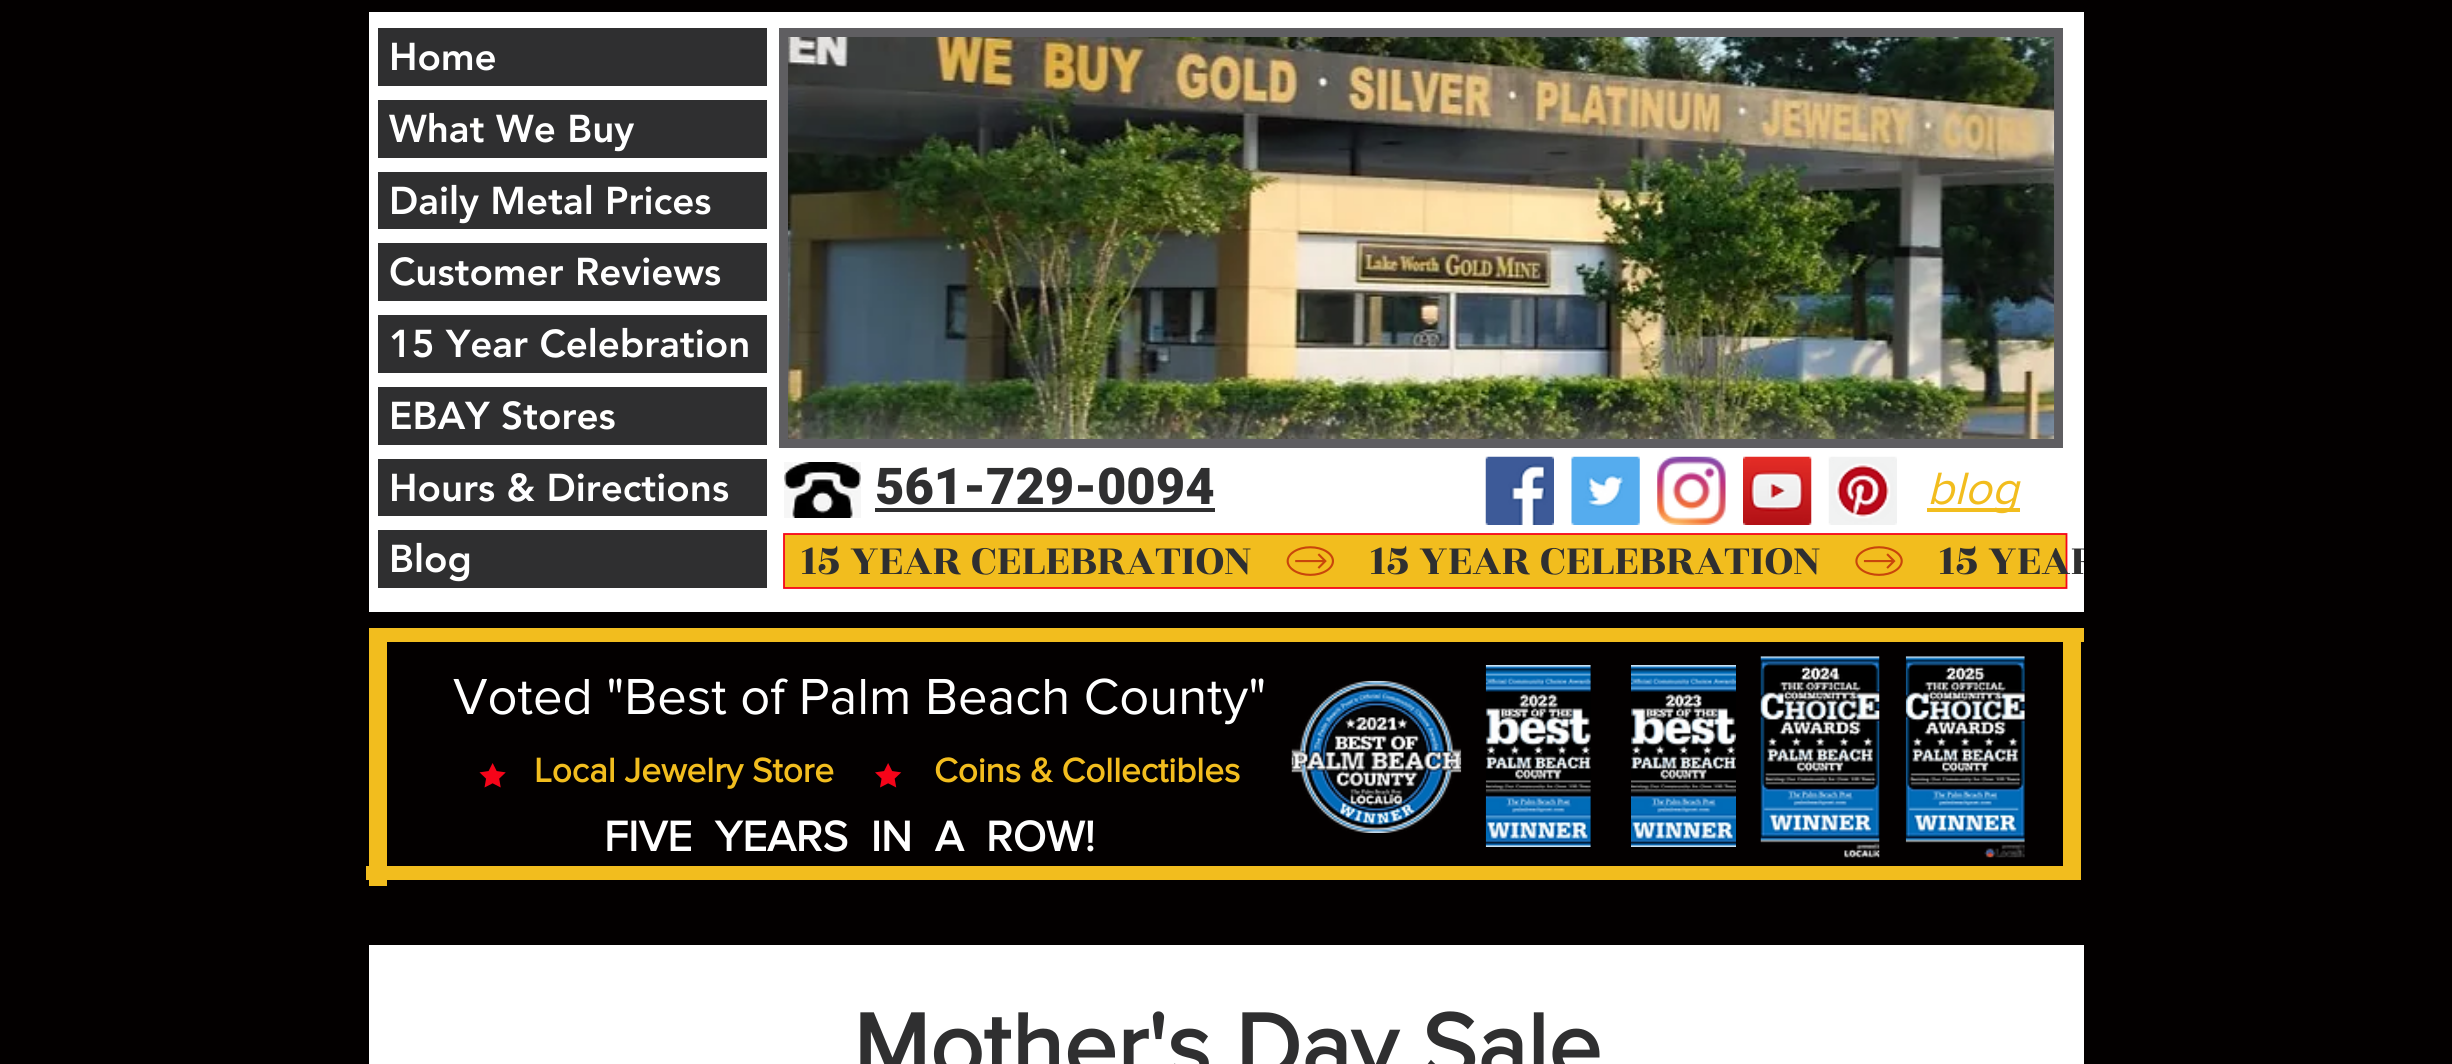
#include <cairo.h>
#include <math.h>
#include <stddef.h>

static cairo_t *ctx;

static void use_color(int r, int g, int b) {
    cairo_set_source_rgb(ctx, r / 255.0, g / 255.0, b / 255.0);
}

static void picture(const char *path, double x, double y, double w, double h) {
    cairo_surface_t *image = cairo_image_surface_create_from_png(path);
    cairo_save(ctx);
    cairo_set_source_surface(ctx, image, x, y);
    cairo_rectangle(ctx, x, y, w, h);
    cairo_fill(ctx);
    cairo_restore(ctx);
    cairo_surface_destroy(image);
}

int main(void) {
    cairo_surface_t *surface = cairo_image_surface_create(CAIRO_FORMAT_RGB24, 2452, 1064);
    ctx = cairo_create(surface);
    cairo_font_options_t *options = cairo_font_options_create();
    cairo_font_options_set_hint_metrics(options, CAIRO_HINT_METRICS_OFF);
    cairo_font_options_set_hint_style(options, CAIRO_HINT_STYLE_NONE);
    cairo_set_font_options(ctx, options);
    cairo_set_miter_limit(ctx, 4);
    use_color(3, 0, 0);
    cairo_paint(ctx);
    use_color(255, 255, 255);
    cairo_rectangle(ctx, 369, 12, 1715, 600);
    cairo_fill(ctx);
    use_color(47, 47, 48);
    cairo_rectangle(ctx, 378, 28, 389, 58);
    cairo_fill(ctx);
    cairo_select_font_face(ctx, "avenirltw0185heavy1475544 Black", CAIRO_FONT_SLANT_NORMAL, CAIRO_FONT_WEIGHT_NORMAL);
    cairo_set_font_size(ctx, 38.5);
    use_color(255, 255, 255);
    cairo_move_to(ctx, 389, 70);
    cairo_show_text(ctx, "Home");
    use_color(47, 47, 48);
    cairo_rectangle(ctx, 378, 100, 389, 58);
    cairo_fill(ctx);
    use_color(255, 255, 255);
    cairo_move_to(ctx, 389, 142);
    cairo_show_text(ctx, "What We Buy");
    use_color(47, 47, 48);
    cairo_rectangle(ctx, 378, 172, 389, 57);
    cairo_fill(ctx);
    use_color(255, 255, 255);
    cairo_move_to(ctx, 389, 214);
    cairo_show_text(ctx, "Daily Metal Prices");
    use_color(47, 47, 48);
    cairo_rectangle(ctx, 378, 243, 389, 58);
    cairo_fill(ctx);
    use_color(255, 255, 255);
    cairo_move_to(ctx, 389, 285);
    cairo_show_text(ctx, "Customer Reviews");
    use_color(47, 47, 48);
    cairo_rectangle(ctx, 378, 315, 389, 58);
    cairo_fill(ctx);
    use_color(255, 255, 255);
    cairo_move_to(ctx, 389, 357);
    cairo_show_text(ctx, "15 Year Celebration");
    use_color(47, 47, 48);
    cairo_rectangle(ctx, 378, 387, 389, 58);
    cairo_fill(ctx);
    use_color(255, 255, 255);
    cairo_move_to(ctx, 389, 429);
    cairo_show_text(ctx, "EBAY Stores");
    use_color(47, 47, 48);
    cairo_rectangle(ctx, 378, 459, 389, 57);
    cairo_fill(ctx);
    use_color(255, 255, 255);
    cairo_move_to(ctx, 389, 501);
    cairo_show_text(ctx, "Hours & Directions");
    use_color(47, 47, 48);
    cairo_rectangle(ctx, 378, 530, 389, 58);
    cairo_fill(ctx);
    use_color(255, 255, 255);
    cairo_move_to(ctx, 389, 572);
    cairo_show_text(ctx, "Blog");
    use_color(95, 94, 97);
    cairo_rectangle(ctx, 779, 28, 1284, 420);
    cairo_fill(ctx);
    picture("img1.png", 788, 37, 1267, 402);
    picture("img2.png", 784, 462, 77, 56);
    cairo_select_font_face(ctx, "Roboto Black", CAIRO_FONT_SLANT_NORMAL, CAIRO_FONT_WEIGHT_NORMAL);
    cairo_set_font_size(ctx, 50.75);
    use_color(47, 47, 48);
    cairo_move_to(ctx, 875, 504);
    cairo_show_text(ctx, "561-729-0094");
    cairo_rectangle(ctx, 875, 508, 340, 4);
    cairo_fill(ctx);
    picture("img3.png", 1485, 456, 69, 69);
    picture("img4.png", 1571, 456, 69, 69);
    picture("img5.png", 1657, 456, 69, 69);
    picture("img6.png", 1743, 456, 69, 69);
    picture("img7.png", 1828, 456, 69, 69);
    use_color(242, 189, 30);
    cairo_rectangle(ctx, 1927, 508, 93, 4);
    cairo_fill(ctx);
    cairo_select_font_face(ctx, "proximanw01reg", CAIRO_FONT_SLANT_ITALIC, CAIRO_FONT_WEIGHT_NORMAL);
    cairo_set_font_size(ctx, 47);
    cairo_move_to(ctx, 1927, 504);
    cairo_show_text(ctx, "blog");
    cairo_rectangle(ctx, 784, 534, 1282, 54);
    cairo_fill(ctx);
    cairo_new_path(ctx);
    cairo_move_to(ctx, 2066.5, 534);
    cairo_line_to(ctx, 2066.5, 588);
    cairo_line_to(ctx, 784, 588);
    cairo_line_to(ctx, 784, 534);
    cairo_close_path(ctx);
    use_color(246, 4, 25);
    cairo_set_line_width(ctx, 1.8);
    cairo_stroke(ctx);
    cairo_select_font_face(ctx, "Rozha One", CAIRO_FONT_SLANT_NORMAL, CAIRO_FONT_WEIGHT_NORMAL);
    cairo_set_font_size(ctx, 45.5);
    use_color(47, 47, 48);
    cairo_move_to(ctx, 800, 574);
    cairo_show_text(ctx, "15 YEAR CELEBRATION");
    picture("img8.png", 1286, 546, 48, 30);
    cairo_move_to(ctx, 1369, 574);
    cairo_show_text(ctx, "15 YEAR CELEBRATION");
    picture("img9.png", 1855, 546, 48, 30);
    cairo_save(ctx);
    cairo_rectangle(ctx, 800, 0, 1284, 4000);
    cairo_clip(ctx);
    cairo_move_to(ctx, 1938, 574);
    cairo_show_text(ctx, "15 YEAR");
    cairo_restore(ctx);
    use_color(242, 189, 30);
    cairo_rectangle(ctx, 369, 628, 18, 258);
    cairo_fill(ctx);
    cairo_rectangle(ctx, 387, 628, 1697, 14);
    cairo_fill(ctx);
    cairo_select_font_face(ctx, "proximanw01reg", CAIRO_FONT_SLANT_NORMAL, CAIRO_FONT_WEIGHT_NORMAL);
    cairo_set_font_size(ctx, 52.5);
    use_color(255, 255, 255);
    cairo_move_to(ctx, 453, 714);
    cairo_show_text(ctx, "Voted \"Best of Palm Beach County\"");
    picture("img10.png", 1291, 680, 171, 153);
    picture("img11.png", 1485, 665, 106, 182);
    picture("img12.png", 1631, 665, 105, 182);
    picture("img13.png", 1760, 656, 120, 202);
    picture("img14.png", 1905, 656, 120, 202);
    use_color(242, 189, 30);
    cairo_rectangle(ctx, 2063, 642, 18, 224);
    cairo_fill(ctx);
    picture("img15.png", 479, 763, 27, 25);
    cairo_select_font_face(ctx, "proximanw01reg", CAIRO_FONT_SLANT_NORMAL, CAIRO_FONT_WEIGHT_BOLD);
    cairo_set_font_size(ctx, 35);
    cairo_move_to(ctx, 534, 782);
    cairo_show_text(ctx, "Local Jewelry Store");
    picture("img16.png", 875, 763, 27, 25);
    cairo_move_to(ctx, 934, 782);
    cairo_show_text(ctx, "Coins & Collectibles");
    cairo_set_font_size(ctx, 43.75);
    use_color(255, 255, 255);
    cairo_move_to(ctx, 604, 851);
    cairo_show_text(ctx, "FIVE  YEARS  IN  A  ROW!");
    use_color(242, 189, 30);
    cairo_rectangle(ctx, 366, 866, 1715, 14);
    cairo_fill(ctx);
    use_color(255, 255, 255);
    cairo_rectangle(ctx, 369, 945, 1715, 119);
    cairo_fill(ctx);
    cairo_set_font_size(ctx, 94.5);
    use_color(47, 47, 48);
    cairo_move_to(ctx, 853, 1078);
    cairo_show_text(ctx, "Mother's Day Sale");
    cairo_surface_write_to_png(surface, "result.png");
    cairo_font_options_destroy(options);
    cairo_destroy(ctx);
    cairo_surface_destroy(surface);
    return 0;
}
